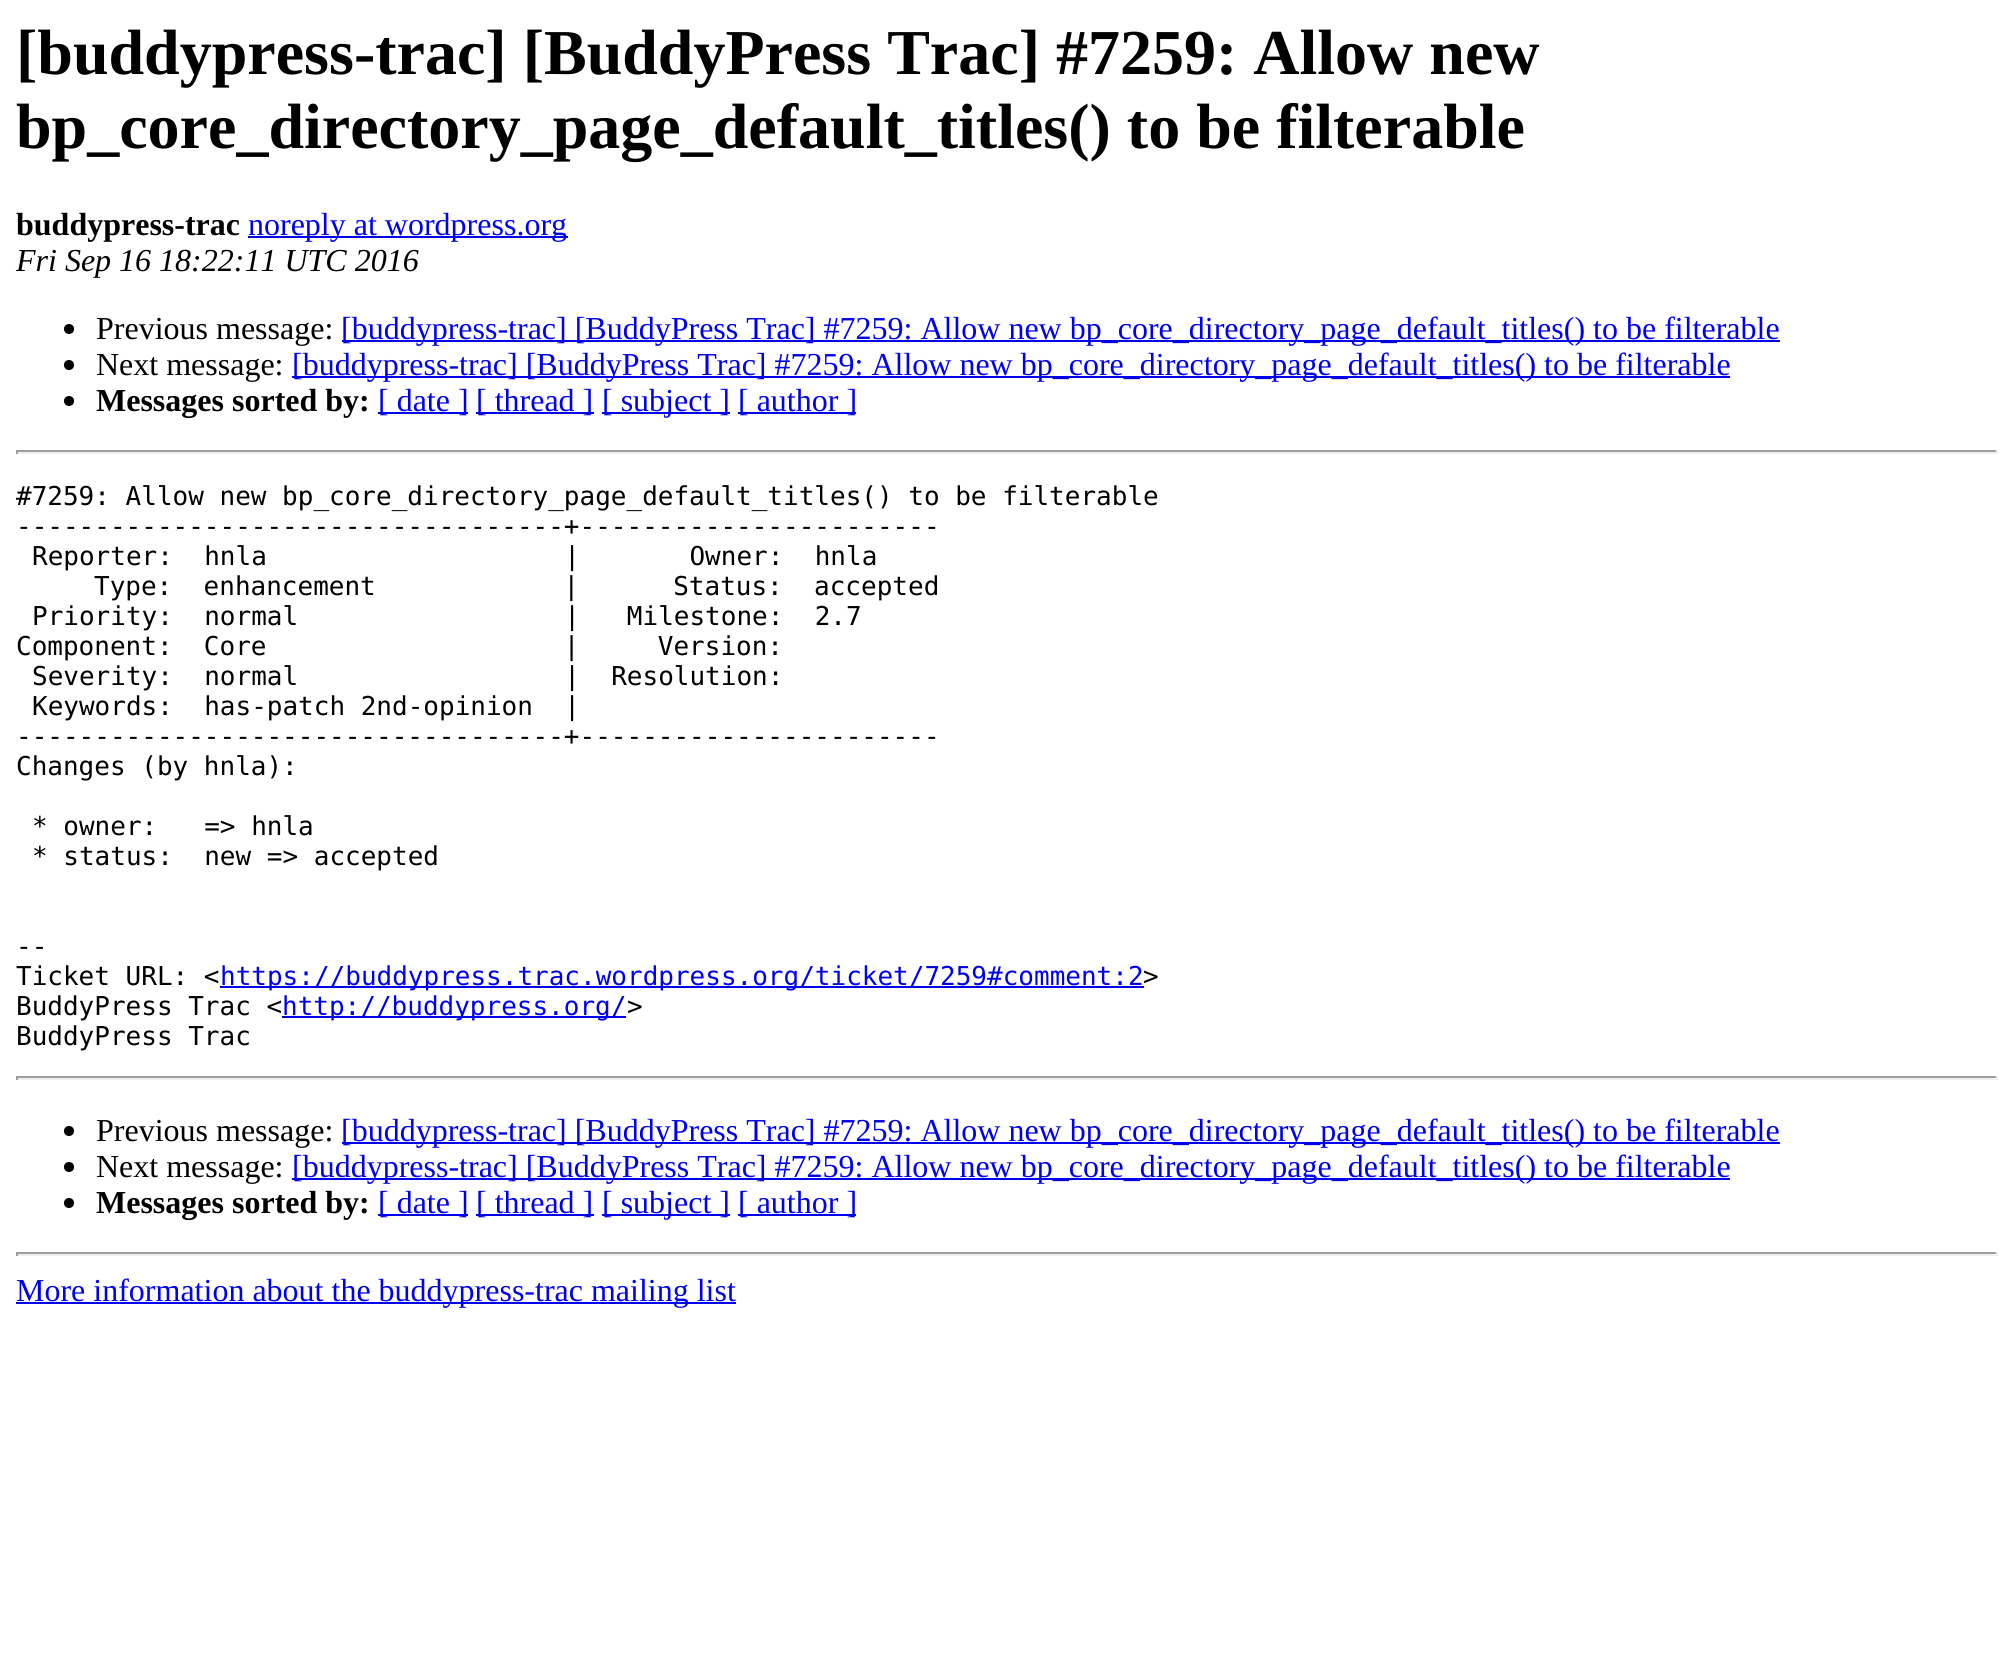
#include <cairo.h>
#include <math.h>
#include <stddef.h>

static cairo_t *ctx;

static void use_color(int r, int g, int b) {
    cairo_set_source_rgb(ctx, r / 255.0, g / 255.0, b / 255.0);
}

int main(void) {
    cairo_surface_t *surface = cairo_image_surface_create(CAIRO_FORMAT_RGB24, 2014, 1671);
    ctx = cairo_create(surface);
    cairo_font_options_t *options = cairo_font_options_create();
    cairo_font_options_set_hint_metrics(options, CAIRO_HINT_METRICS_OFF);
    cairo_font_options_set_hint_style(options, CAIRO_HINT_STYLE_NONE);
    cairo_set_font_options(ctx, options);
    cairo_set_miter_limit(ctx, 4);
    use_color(255, 255, 255);
    cairo_paint(ctx);
    cairo_select_font_face(ctx, "Liberation Serif", CAIRO_FONT_SLANT_NORMAL, CAIRO_FONT_WEIGHT_BOLD);
    cairo_set_font_size(ctx, 64);
    use_color(0, 0, 0);
    cairo_move_to(ctx, 16, 74);
    cairo_show_text(ctx, "[buddypress-trac] [BuddyPress Trac] #7259: Allow new");
    cairo_move_to(ctx, 16, 148);
    cairo_show_text(ctx, "bp_core_directory_page_default_titles() to be filterable");
    cairo_set_font_size(ctx, 32);
    cairo_move_to(ctx, 16, 235);
    cairo_show_text(ctx, "buddypress-trac");
    use_color(0, 0, 238);
    cairo_rectangle(ctx, 248, 236, 320, 2);
    cairo_fill(ctx);
    cairo_select_font_face(ctx, "Liberation Serif", CAIRO_FONT_SLANT_NORMAL, CAIRO_FONT_WEIGHT_NORMAL);
    cairo_move_to(ctx, 248, 235);
    cairo_show_text(ctx, "noreply at wordpress.org");
    cairo_select_font_face(ctx, "Liberation Serif", CAIRO_FONT_SLANT_ITALIC, CAIRO_FONT_WEIGHT_NORMAL);
    use_color(0, 0, 0);
    cairo_move_to(ctx, 16, 271);
    cairo_show_text(ctx, "Fri Sep 16 18:22:11 UTC 2016");
    cairo_new_path(ctx);
    cairo_arc(ctx, 69, 329, 5, 0, 2 * M_PI);
    cairo_fill(ctx);
    cairo_select_font_face(ctx, "Liberation Serif", CAIRO_FONT_SLANT_NORMAL, CAIRO_FONT_WEIGHT_NORMAL);
    cairo_move_to(ctx, 96, 339);
    cairo_show_text(ctx, "Previous message:");
    use_color(0, 0, 238);
    cairo_rectangle(ctx, 342, 340, 1438, 2);
    cairo_fill(ctx);
    cairo_move_to(ctx, 341, 339);
    cairo_show_text(ctx, "[buddypress-trac] [BuddyPress Trac] #7259: Allow new bp_core_directory_page_default_titles() to be filterable");
    use_color(0, 0, 0);
    cairo_new_path(ctx);
    cairo_arc(ctx, 69, 365, 5, 0, 2 * M_PI);
    cairo_fill(ctx);
    cairo_move_to(ctx, 96, 375);
    cairo_show_text(ctx, "Next message:");
    use_color(0, 0, 238);
    cairo_rectangle(ctx, 292, 376, 1438, 2);
    cairo_fill(ctx);
    cairo_move_to(ctx, 292, 375);
    cairo_show_text(ctx, "[buddypress-trac] [BuddyPress Trac] #7259: Allow new bp_core_directory_page_default_titles() to be filterable");
    use_color(0, 0, 0);
    cairo_new_path(ctx);
    cairo_arc(ctx, 69, 401, 5, 0, 2 * M_PI);
    cairo_fill(ctx);
    cairo_select_font_face(ctx, "Liberation Serif", CAIRO_FONT_SLANT_NORMAL, CAIRO_FONT_WEIGHT_BOLD);
    cairo_move_to(ctx, 96, 411);
    cairo_show_text(ctx, "Messages sorted by:");
    use_color(0, 0, 238);
    cairo_rectangle(ctx, 378, 412, 90, 2);
    cairo_fill(ctx);
    cairo_select_font_face(ctx, "Liberation Serif", CAIRO_FONT_SLANT_NORMAL, CAIRO_FONT_WEIGHT_NORMAL);
    cairo_move_to(ctx, 378, 411);
    cairo_show_text(ctx, "[ date ]");
    cairo_rectangle(ctx, 476, 412, 118, 2);
    cairo_fill(ctx);
    cairo_move_to(ctx, 476, 411);
    cairo_show_text(ctx, "[ thread ]");
    cairo_rectangle(ctx, 602, 412, 128, 2);
    cairo_fill(ctx);
    cairo_move_to(ctx, 602, 411);
    cairo_show_text(ctx, "[ subject ]");
    cairo_rectangle(ctx, 738, 412, 118, 2);
    cairo_fill(ctx);
    cairo_move_to(ctx, 738, 411);
    cairo_show_text(ctx, "[ author ]");
    use_color(159, 159, 159);
    cairo_rectangle(ctx, 16, 450, 1982, 2);
    cairo_fill(ctx);
    use_color(238, 238, 238);
    cairo_rectangle(ctx, 1996, 450, 2, 4);
    cairo_fill(ctx);
    cairo_rectangle(ctx, 16, 452, 1982, 2);
    cairo_fill(ctx);
    use_color(159, 159, 159);
    cairo_rectangle(ctx, 16, 450, 2, 4);
    cairo_fill(ctx);
    cairo_select_font_face(ctx, "DejaVu Sans Mono", CAIRO_FONT_SLANT_NORMAL, CAIRO_FONT_WEIGHT_NORMAL);
    cairo_set_font_size(ctx, 26);
    use_color(0, 0, 0);
    cairo_move_to(ctx, 16, 505);
    cairo_show_text(ctx, "#7259: Allow new bp_core_directory_page_default_titles() to be filterable");
    cairo_move_to(ctx, 16, 535);
    cairo_show_text(ctx, "-----------------------------------+-----------------------");
    cairo_move_to(ctx, 32, 565);
    cairo_show_text(ctx, "Reporter:  hnla                   |       Owner:  hnla");
    cairo_move_to(ctx, 94, 595);
    cairo_show_text(ctx, "Type:  enhancement            |      Status:  accepted");
    cairo_move_to(ctx, 32, 625);
    cairo_show_text(ctx, "Priority:  normal                 |   Milestone:  2.7");
    cairo_move_to(ctx, 16, 655);
    cairo_show_text(ctx, "Component:  Core                   |     Version:");
    cairo_move_to(ctx, 32, 685);
    cairo_show_text(ctx, "Severity:  normal                 |  Resolution:");
    cairo_move_to(ctx, 32, 715);
    cairo_show_text(ctx, "Keywords:  has-patch 2nd-opinion  |");
    cairo_move_to(ctx, 16, 745);
    cairo_show_text(ctx, "-----------------------------------+-----------------------");
    cairo_move_to(ctx, 16, 775);
    cairo_show_text(ctx, "Changes (by hnla):");
    cairo_move_to(ctx, 32, 835);
    cairo_show_text(ctx, "* owner:   => hnla");
    cairo_move_to(ctx, 32, 865);
    cairo_show_text(ctx, "* status:  new => accepted");
    cairo_move_to(ctx, 16, 955);
    cairo_show_text(ctx, "--");
    cairo_move_to(ctx, 16, 985);
    cairo_show_text(ctx, "Ticket URL: <");
    use_color(0, 0, 238);
    cairo_rectangle(ctx, 220, 986, 924, 2);
    cairo_fill(ctx);
    cairo_move_to(ctx, 220, 985);
    cairo_show_text(ctx, "https://buddypress.trac.wordpress.org/ticket/7259#comment:2");
    use_color(0, 0, 0);
    cairo_move_to(ctx, 1143, 985);
    cairo_show_text(ctx, ">");
    cairo_move_to(ctx, 16, 1015);
    cairo_show_text(ctx, "BuddyPress Trac <");
    use_color(0, 0, 238);
    cairo_rectangle(ctx, 282, 1016, 344, 2);
    cairo_fill(ctx);
    cairo_move_to(ctx, 282, 1015);
    cairo_show_text(ctx, "http://buddypress.org/");
    use_color(0, 0, 0);
    cairo_move_to(ctx, 627, 1015);
    cairo_show_text(ctx, ">");
    cairo_move_to(ctx, 16, 1045);
    cairo_show_text(ctx, "BuddyPress Trac");
    use_color(159, 159, 159);
    cairo_rectangle(ctx, 16, 1076, 1982, 2);
    cairo_fill(ctx);
    use_color(238, 238, 238);
    cairo_rectangle(ctx, 1996, 1076, 2, 4);
    cairo_fill(ctx);
    cairo_rectangle(ctx, 16, 1078, 1982, 2);
    cairo_fill(ctx);
    use_color(159, 159, 159);
    cairo_rectangle(ctx, 16, 1076, 2, 4);
    cairo_fill(ctx);
    use_color(0, 0, 0);
    cairo_arc(ctx, 69, 1131, 5, 0, 2 * M_PI);
    cairo_fill(ctx);
    cairo_select_font_face(ctx, "Liberation Serif", CAIRO_FONT_SLANT_NORMAL, CAIRO_FONT_WEIGHT_NORMAL);
    cairo_set_font_size(ctx, 32);
    cairo_move_to(ctx, 96, 1141);
    cairo_show_text(ctx, "Previous message:");
    use_color(0, 0, 238);
    cairo_rectangle(ctx, 342, 1142, 1438, 2);
    cairo_fill(ctx);
    cairo_move_to(ctx, 341, 1141);
    cairo_show_text(ctx, "[buddypress-trac] [BuddyPress Trac] #7259: Allow new bp_core_directory_page_default_titles() to be filterable");
    use_color(0, 0, 0);
    cairo_new_path(ctx);
    cairo_arc(ctx, 69, 1167, 5, 0, 2 * M_PI);
    cairo_fill(ctx);
    cairo_move_to(ctx, 96, 1177);
    cairo_show_text(ctx, "Next message:");
    use_color(0, 0, 238);
    cairo_rectangle(ctx, 292, 1178, 1438, 2);
    cairo_fill(ctx);
    cairo_move_to(ctx, 292, 1177);
    cairo_show_text(ctx, "[buddypress-trac] [BuddyPress Trac] #7259: Allow new bp_core_directory_page_default_titles() to be filterable");
    use_color(0, 0, 0);
    cairo_new_path(ctx);
    cairo_arc(ctx, 69, 1203, 5, 0, 2 * M_PI);
    cairo_fill(ctx);
    cairo_select_font_face(ctx, "Liberation Serif", CAIRO_FONT_SLANT_NORMAL, CAIRO_FONT_WEIGHT_BOLD);
    cairo_move_to(ctx, 96, 1213);
    cairo_show_text(ctx, "Messages sorted by:");
    use_color(0, 0, 238);
    cairo_rectangle(ctx, 378, 1214, 90, 2);
    cairo_fill(ctx);
    cairo_select_font_face(ctx, "Liberation Serif", CAIRO_FONT_SLANT_NORMAL, CAIRO_FONT_WEIGHT_NORMAL);
    cairo_move_to(ctx, 378, 1213);
    cairo_show_text(ctx, "[ date ]");
    cairo_rectangle(ctx, 476, 1214, 118, 2);
    cairo_fill(ctx);
    cairo_move_to(ctx, 476, 1213);
    cairo_show_text(ctx, "[ thread ]");
    cairo_rectangle(ctx, 602, 1214, 128, 2);
    cairo_fill(ctx);
    cairo_move_to(ctx, 602, 1213);
    cairo_show_text(ctx, "[ subject ]");
    cairo_rectangle(ctx, 738, 1214, 118, 2);
    cairo_fill(ctx);
    cairo_move_to(ctx, 738, 1213);
    cairo_show_text(ctx, "[ author ]");
    use_color(159, 159, 159);
    cairo_rectangle(ctx, 16, 1252, 1982, 2);
    cairo_fill(ctx);
    use_color(238, 238, 238);
    cairo_rectangle(ctx, 1996, 1252, 2, 4);
    cairo_fill(ctx);
    cairo_rectangle(ctx, 16, 1254, 1982, 2);
    cairo_fill(ctx);
    use_color(159, 159, 159);
    cairo_rectangle(ctx, 16, 1252, 2, 4);
    cairo_fill(ctx);
    use_color(0, 0, 238);
    cairo_rectangle(ctx, 16, 1302, 720, 2);
    cairo_fill(ctx);
    cairo_move_to(ctx, 16, 1301);
    cairo_show_text(ctx, "More information about the buddypress-trac mailing list");
    cairo_surface_write_to_png(surface, "result.png");
    cairo_font_options_destroy(options);
    cairo_destroy(ctx);
    cairo_surface_destroy(surface);
    return 0;
}
